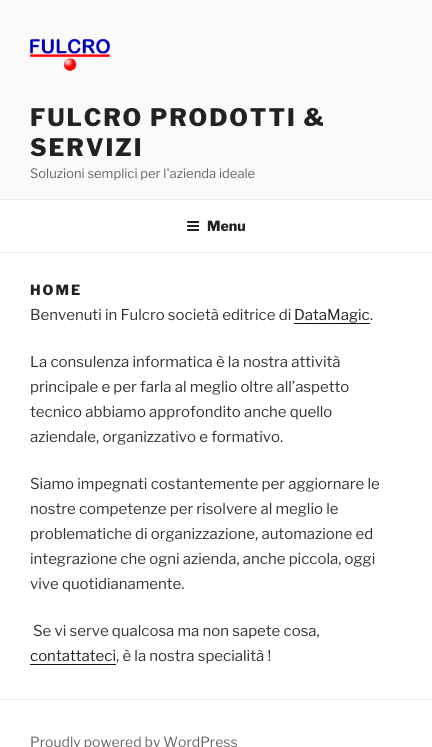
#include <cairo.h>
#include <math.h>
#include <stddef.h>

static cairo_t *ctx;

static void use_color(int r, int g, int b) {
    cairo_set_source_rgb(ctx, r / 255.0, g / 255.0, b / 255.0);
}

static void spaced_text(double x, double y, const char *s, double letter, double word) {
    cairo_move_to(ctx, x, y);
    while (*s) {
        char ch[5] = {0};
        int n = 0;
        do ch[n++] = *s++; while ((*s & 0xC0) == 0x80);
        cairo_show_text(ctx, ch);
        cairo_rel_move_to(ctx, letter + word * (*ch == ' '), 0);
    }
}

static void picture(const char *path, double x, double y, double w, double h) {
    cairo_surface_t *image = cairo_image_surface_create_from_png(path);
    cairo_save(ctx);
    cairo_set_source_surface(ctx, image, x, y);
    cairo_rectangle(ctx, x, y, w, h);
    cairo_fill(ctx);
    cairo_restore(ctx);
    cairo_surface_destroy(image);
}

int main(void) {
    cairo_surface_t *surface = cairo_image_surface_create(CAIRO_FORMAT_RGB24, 432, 747);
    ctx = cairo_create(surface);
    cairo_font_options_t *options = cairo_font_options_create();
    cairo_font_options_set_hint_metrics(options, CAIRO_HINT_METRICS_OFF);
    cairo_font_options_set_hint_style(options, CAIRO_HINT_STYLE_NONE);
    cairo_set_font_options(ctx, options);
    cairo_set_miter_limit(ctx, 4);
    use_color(255, 255, 255);
    cairo_paint(ctx);
    use_color(250, 250, 250);
    cairo_rectangle(ctx, 0, 0, 432, 199);
    cairo_fill(ctx);
    picture("img1.png", 30, 38, 80, 33);
    cairo_select_font_face(ctx, "Libre Franklin Thin", CAIRO_FONT_SLANT_NORMAL, CAIRO_FONT_WEIGHT_NORMAL);
    cairo_set_font_size(ctx, 24);
    use_color(34, 34, 34);
    spaced_text(30, 126, "FULCRO PRODOTTI &", 1.9, 0);
    spaced_text(30, 156, "SERVIZI", 1.9, 0);
    cairo_select_font_face(ctx, "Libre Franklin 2 Thin", CAIRO_FONT_SLANT_NORMAL, CAIRO_FONT_WEIGHT_NORMAL);
    cairo_set_font_size(ctx, 13);
    use_color(102, 102, 102);
    cairo_move_to(ctx, 30, 178);
    cairo_show_text(ctx, "Soluzioni semplici per l'azienda ideale");
    use_color(238, 238, 238);
    cairo_rectangle(ctx, 0, 199, 432, 1);
    cairo_fill(ctx);
    cairo_rectangle(ctx, 0, 252, 432, 1);
    cairo_fill(ctx);
    picture("img2.png", 187, 221, 13, 10);
    cairo_select_font_face(ctx, "Libre Franklin Thin", CAIRO_FONT_SLANT_NORMAL, CAIRO_FONT_WEIGHT_NORMAL);
    cairo_set_font_size(ctx, 14);
    use_color(34, 34, 34);
    cairo_move_to(ctx, 207, 231);
    cairo_show_text(ctx, "Menu");
    spaced_text(30, 295, "HOME", 2, 0);
    cairo_select_font_face(ctx, "Libre Franklin 2 Thin", CAIRO_FONT_SLANT_NORMAL, CAIRO_FONT_WEIGHT_NORMAL);
    cairo_set_font_size(ctx, 15);
    use_color(51, 51, 51);
    cairo_move_to(ctx, 30, 320);
    cairo_show_text(ctx, "Benvenuti in Fulcro società editrice di");
    use_color(34, 34, 34);
    cairo_move_to(ctx, 294, 320);
    cairo_show_text(ctx, "DataMagic");
    use_color(15, 15, 15);
    cairo_rectangle(ctx, 294, 323, 76, 1);
    cairo_fill(ctx);
    use_color(51, 51, 51);
    cairo_move_to(ctx, 370, 320);
    cairo_show_text(ctx, ".");
    cairo_move_to(ctx, 30, 367);
    cairo_show_text(ctx, "La consulenza informatica è la nostra attività");
    cairo_move_to(ctx, 30, 392);
    cairo_show_text(ctx, "principale e per farla al meglio oltre all’aspetto");
    cairo_move_to(ctx, 30, 417);
    cairo_show_text(ctx, "tecnico abbiamo approfondito anche quello");
    cairo_move_to(ctx, 30, 442);
    cairo_show_text(ctx, "aziendale, organizzativo e formativo.");
    cairo_move_to(ctx, 30, 489);
    cairo_show_text(ctx, "Siamo impegnati costantemente per aggiornare le");
    cairo_move_to(ctx, 30, 514);
    cairo_show_text(ctx, "nostre competenze per risolvere al meglio le");
    cairo_move_to(ctx, 30, 539);
    cairo_show_text(ctx, "problematiche di organizzazione, automazione ed");
    cairo_move_to(ctx, 30, 564);
    cairo_show_text(ctx, "integrazione che ogni azienda, anche piccola, oggi");
    cairo_move_to(ctx, 30, 589);
    cairo_show_text(ctx, "vive quotidianamente.");
    cairo_move_to(ctx, 33, 636);
    cairo_show_text(ctx, "Se vi serve qualcosa ma non sapete cosa,");
    use_color(34, 34, 34);
    cairo_move_to(ctx, 30, 661);
    cairo_show_text(ctx, "contattateci");
    use_color(15, 15, 15);
    cairo_rectangle(ctx, 30, 664, 86, 1);
    cairo_fill(ctx);
    use_color(51, 51, 51);
    cairo_move_to(ctx, 116, 661);
    cairo_show_text(ctx, ", è la nostra specialità !");
    use_color(238, 238, 238);
    cairo_rectangle(ctx, 0, 699, 432, 1);
    cairo_fill(ctx);
    cairo_set_font_size(ctx, 14);
    use_color(102, 102, 102);
    cairo_move_to(ctx, 30, 747);
    cairo_show_text(ctx, "Proudly powered by WordPress");
    cairo_surface_write_to_png(surface, "result.png");
    cairo_font_options_destroy(options);
    cairo_destroy(ctx);
    cairo_surface_destroy(surface);
    return 0;
}
